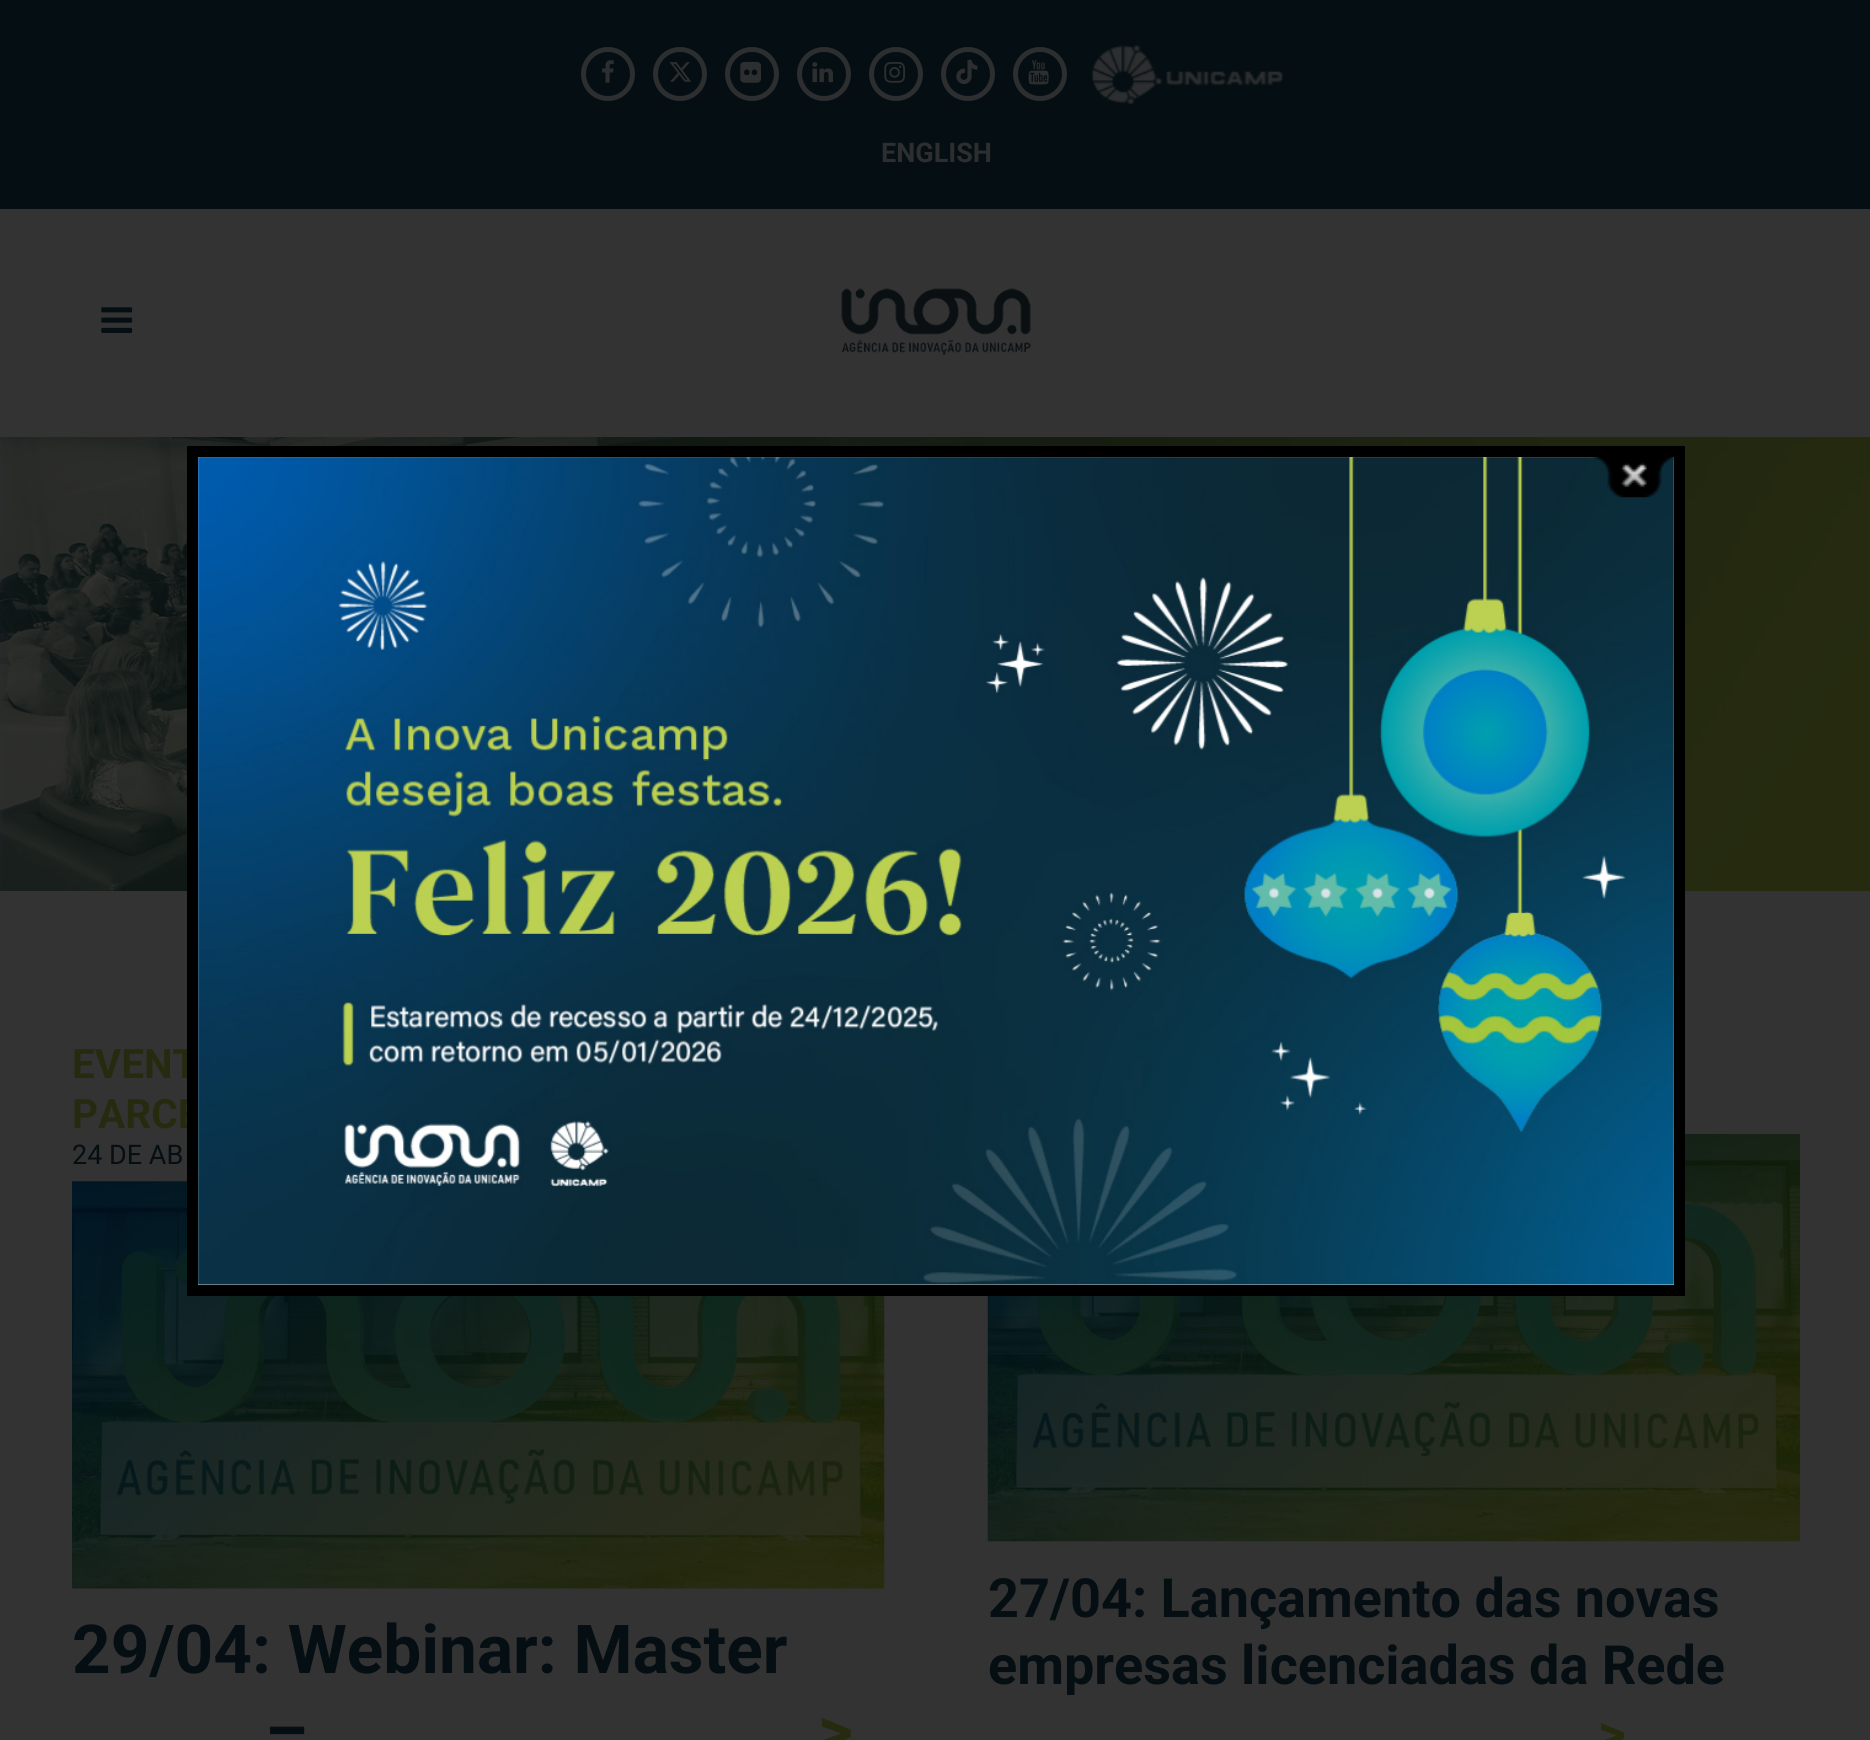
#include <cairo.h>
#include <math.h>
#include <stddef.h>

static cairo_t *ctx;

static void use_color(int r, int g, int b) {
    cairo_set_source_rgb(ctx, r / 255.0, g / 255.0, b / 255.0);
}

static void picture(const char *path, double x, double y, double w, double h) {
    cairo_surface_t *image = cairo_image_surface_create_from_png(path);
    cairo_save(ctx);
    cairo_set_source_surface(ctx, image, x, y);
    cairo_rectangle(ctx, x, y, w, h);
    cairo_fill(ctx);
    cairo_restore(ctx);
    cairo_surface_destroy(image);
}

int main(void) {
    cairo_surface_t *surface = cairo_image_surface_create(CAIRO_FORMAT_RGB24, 1870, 1740);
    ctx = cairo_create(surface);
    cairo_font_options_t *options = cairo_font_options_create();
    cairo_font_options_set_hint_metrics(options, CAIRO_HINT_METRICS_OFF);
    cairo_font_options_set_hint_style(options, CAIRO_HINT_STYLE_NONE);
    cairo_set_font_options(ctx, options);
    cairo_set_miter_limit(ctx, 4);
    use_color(51, 51, 51);
    cairo_paint(ctx);
    use_color(5, 14, 18);
    cairo_rectangle(ctx, 0, 0, 1870, 209);
    cairo_fill(ctx);
    cairo_arc(ctx, 608, 74, 24.5, 0, 2 * M_PI);
    use_color(44, 46, 47);
    cairo_set_line_width(ctx, 5);
    cairo_stroke(ctx);
    picture("img1.png", 602, 60, 12, 23);
    cairo_arc(ctx, 680, 74, 24.5, 0, 2 * M_PI);
    cairo_stroke(ctx);
    picture("img2.png", 669, 62, 23, 20);
    cairo_arc(ctx, 752, 74, 24.5, 0, 2 * M_PI);
    cairo_stroke(ctx);
    picture("img3.png", 740, 61, 21, 22);
    cairo_arc(ctx, 824, 74, 24.5, 0, 2 * M_PI);
    cairo_stroke(ctx);
    picture("img4.png", 812, 62, 21, 21);
    cairo_arc(ctx, 896, 74, 24.5, 0, 2 * M_PI);
    cairo_stroke(ctx);
    picture("img5.png", 884, 61, 21, 22);
    cairo_arc(ctx, 968, 74, 24.5, 0, 2 * M_PI);
    cairo_stroke(ctx);
    picture("img6.png", 956, 59, 22, 25);
    cairo_arc(ctx, 1040, 74, 24.5, 0, 2 * M_PI);
    cairo_stroke(ctx);
    picture("img7.png", 1028, 60, 21, 25);
    picture("img8.png", 1092, 45, 191, 60);
    cairo_select_font_face(ctx, "Roboto", CAIRO_FONT_SLANT_NORMAL, CAIRO_FONT_WEIGHT_BOLD);
    cairo_set_font_size(ctx, 27);
    cairo_move_to(ctx, 881, 162);
    cairo_show_text(ctx, "ENGLISH");
    picture("img9.png", 101, 307, 32, 26);
    picture("img10.png", 841, 288, 190, 67);
    picture("img11.png", 0, 437, 1870, 454);
    cairo_set_font_size(ctx, 40.5);
    use_color(38, 43, 16);
    cairo_move_to(ctx, 72, 1078);
    cairo_show_text(ctx, "EVENT");
    cairo_move_to(ctx, 72, 1128);
    cairo_show_text(ctx, "PARCE");
    cairo_select_font_face(ctx, "Roboto", CAIRO_FONT_SLANT_NORMAL, CAIRO_FONT_WEIGHT_NORMAL);
    cairo_set_font_size(ctx, 27);
    use_color(5, 14, 18);
    cairo_move_to(ctx, 72, 1164);
    cairo_show_text(ctx, "24 DE AB");
    picture("img12.png", 72, 1181, 813, 408);
    cairo_select_font_face(ctx, "Roboto", CAIRO_FONT_SLANT_NORMAL, CAIRO_FONT_WEIGHT_BOLD);
    cairo_set_font_size(ctx, 67.5);
    cairo_move_to(ctx, 72, 1673);
    cairo_show_text(ctx, "29/04: Webinar: Master");
    cairo_move_to(ctx, 265, 1754);
    cairo_show_text(ctx, "–");
    use_color(38, 43, 16);
    cairo_move_to(ctx, 818, 1754);
    cairo_show_text(ctx, ">");
    picture("img13.png", 987, 1134, 813, 408);
    cairo_set_font_size(ctx, 54);
    use_color(5, 14, 18);
    cairo_move_to(ctx, 988, 1617);
    cairo_show_text(ctx, "27/04: Lançamento das novas");
    cairo_move_to(ctx, 988, 1684);
    cairo_show_text(ctx, "empresas licenciadas da Rede");
    use_color(38, 43, 16);
    cairo_move_to(ctx, 1598, 1752);
    cairo_show_text(ctx, ">");
    use_color(255, 255, 255);
    cairo_rectangle(ctx, 198, 457, 1476, 828);
    cairo_fill(ctx);
    picture("img14.png", 198, 457, 1476, 828);
    cairo_rectangle(ctx, 192.5, 451.5, 1487, 839);
    use_color(0, 0, 0);
    cairo_set_line_width(ctx, 11);
    cairo_stroke(ctx);
    picture("img15.png", 1592, 457, 82, 41);
    cairo_surface_write_to_png(surface, "result.png");
    cairo_font_options_destroy(options);
    cairo_destroy(ctx);
    cairo_surface_destroy(surface);
    return 0;
}
